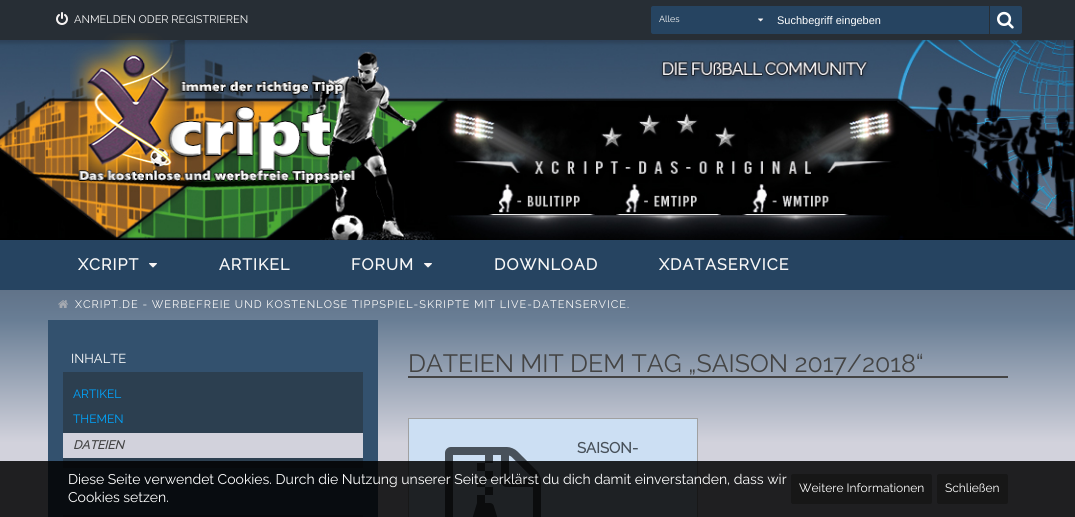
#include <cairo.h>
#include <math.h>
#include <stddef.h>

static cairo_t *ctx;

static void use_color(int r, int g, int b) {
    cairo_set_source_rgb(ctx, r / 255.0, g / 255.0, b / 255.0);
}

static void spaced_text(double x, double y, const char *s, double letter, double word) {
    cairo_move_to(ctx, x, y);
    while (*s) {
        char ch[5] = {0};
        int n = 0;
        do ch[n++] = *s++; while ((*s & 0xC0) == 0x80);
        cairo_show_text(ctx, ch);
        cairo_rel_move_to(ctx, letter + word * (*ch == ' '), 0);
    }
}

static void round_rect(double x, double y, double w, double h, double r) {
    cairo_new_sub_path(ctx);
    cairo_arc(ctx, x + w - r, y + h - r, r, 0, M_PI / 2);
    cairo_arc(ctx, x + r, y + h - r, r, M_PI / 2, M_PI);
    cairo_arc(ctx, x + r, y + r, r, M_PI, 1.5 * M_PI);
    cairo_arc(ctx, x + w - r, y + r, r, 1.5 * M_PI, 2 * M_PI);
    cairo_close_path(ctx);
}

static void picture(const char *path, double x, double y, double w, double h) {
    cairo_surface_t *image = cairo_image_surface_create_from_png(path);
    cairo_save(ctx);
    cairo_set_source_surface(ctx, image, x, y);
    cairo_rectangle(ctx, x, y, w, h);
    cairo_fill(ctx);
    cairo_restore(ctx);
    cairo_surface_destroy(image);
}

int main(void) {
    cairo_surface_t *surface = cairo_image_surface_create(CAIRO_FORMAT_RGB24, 1075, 517);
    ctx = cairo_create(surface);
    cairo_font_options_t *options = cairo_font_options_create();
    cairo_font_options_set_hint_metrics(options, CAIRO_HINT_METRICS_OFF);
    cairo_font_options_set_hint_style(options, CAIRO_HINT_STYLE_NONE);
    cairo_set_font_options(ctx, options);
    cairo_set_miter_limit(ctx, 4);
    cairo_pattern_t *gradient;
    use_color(255, 255, 255);
    cairo_paint(ctx);
    picture("img1.png", 0, 40, 1075, 200);
    use_color(38, 68, 97);
    cairo_rectangle(ctx, 0, 240, 1075, 50);
    cairo_fill(ctx);
    use_color(39, 46, 53);
    cairo_rectangle(ctx, 0, 0, 1075, 40);
    cairo_fill(ctx);
    picture("img2.png", 56, 12, 12, 13);
    cairo_select_font_face(ctx, "Raleway Thin", CAIRO_FONT_SLANT_NORMAL, CAIRO_FONT_WEIGHT_NORMAL);
    cairo_set_font_size(ctx, 11);
    use_color(247, 247, 247);
    cairo_move_to(ctx, 74, 23);
    cairo_show_text(ctx, "ANMELDEN ODER REGISTRIEREN");
    cairo_select_font_face(ctx, "Raleway", CAIRO_FONT_SLANT_NORMAL, CAIRO_FONT_WEIGHT_BOLD);
    cairo_set_font_size(ctx, 16);
    spaced_text(78, 270, "XCRIPT", 1, 0);
    picture("img3.png", 149, 263, 8, 5);
    spaced_text(219, 270, "ARTIKEL", 1, 0);
    spaced_text(351, 270, "FORUM", 1, 0);
    picture("img3.png", 424, 263, 8, 5);
    spaced_text(494, 270, "DOWNLOAD", 1, 0);
    spaced_text(659, 270, "XDATASERVICE", 1, 0);
    use_color(38, 68, 97);
    cairo_new_path(ctx);
    cairo_move_to(ctx, 653, 6);
    cairo_line_to(ctx, 771, 6);
    cairo_line_to(ctx, 771, 34);
    cairo_line_to(ctx, 653, 34);
    cairo_curve_to(ctx, 652, 34, 651, 33, 651, 32);
    cairo_line_to(ctx, 651, 8);
    cairo_curve_to(ctx, 651, 7, 652, 6, 653, 6);
    cairo_close_path(ctx);
    cairo_fill(ctx);
    cairo_select_font_face(ctx, "Raleway Thin", CAIRO_FONT_SLANT_NORMAL, CAIRO_FONT_WEIGHT_NORMAL);
    cairo_set_font_size(ctx, 9);
    use_color(247, 247, 247);
    cairo_move_to(ctx, 659, 22);
    cairo_show_text(ctx, "Alles");
    picture("img4.png", 758, 18, 6, 4);
    use_color(38, 68, 97);
    cairo_rectangle(ctx, 771, 6, 218, 28);
    cairo_fill(ctx);
    cairo_save(ctx);
    cairo_rectangle(ctx, 777, 14, 206, 12);
    cairo_clip(ctx);
    cairo_select_font_face(ctx, "Liberation Sans", CAIRO_FONT_SLANT_NORMAL, CAIRO_FONT_WEIGHT_NORMAL);
    cairo_set_font_size(ctx, 11);
    use_color(255, 255, 255);
    cairo_move_to(ctx, 777, 24);
    cairo_show_text(ctx, "Suchbegriff eingeben");
    cairo_restore(ctx);
    cairo_new_path(ctx);
    cairo_move_to(ctx, 990, 6);
    cairo_line_to(ctx, 1020, 6);
    cairo_curve_to(ctx, 1021, 6, 1022, 7, 1022, 8);
    cairo_line_to(ctx, 1022, 32);
    cairo_curve_to(ctx, 1022, 33, 1021, 34, 1020, 34);
    cairo_line_to(ctx, 990, 34);
    cairo_close_path(ctx);
    cairo_fill(ctx);
    picture("img5.png", 997, 11, 17, 18);
    picture("img6.png", 70, 33, 285, 155);
    gradient = cairo_pattern_create_linear(538, 320, 538, 290);
    cairo_pattern_add_color_stop_rgba(gradient, 0, 0.412, 0.494, 0.584, 1);
    cairo_pattern_add_color_stop_rgba(gradient, 1, 0.38, 0.451, 0.537, 1);
    cairo_set_source(ctx, gradient);
    cairo_pattern_destroy(gradient);
    cairo_rectangle(ctx, 0, 290, 1075, 30);
    cairo_fill(ctx);
    picture("img7.png", 58, 300, 10, 8);
    cairo_set_font_size(ctx, 11);
    use_color(247, 247, 247);
    spaced_text(75, 308, "XCRIPT.DE - WERBEFREIE UND KOSTENLOSE TIPPSPIEL-SKRIPTE MIT LIVE-DATENSERVICE.", 1, 0);
    gradient = cairo_pattern_create_linear(538, 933, 538, 320);
    cairo_pattern_add_color_stop_rgba(gradient, 0.8, 0.824, 0.824, 0.863, 1);
    cairo_pattern_add_color_stop_rgba(gradient, 1, 0.412, 0.494, 0.584, 1);
    cairo_set_source(ctx, gradient);
    cairo_pattern_destroy(gradient);
    cairo_rectangle(ctx, 0, 320, 1075, 197);
    cairo_fill(ctx);
    use_color(51, 81, 110);
    cairo_rectangle(ctx, 48, 320, 330, 197);
    cairo_fill(ctx);
    use_color(44, 63, 80);
    cairo_rectangle(ctx, 63, 372, 300, 96);
    cairo_fill(ctx);
    cairo_set_font_size(ctx, 13);
    use_color(255, 255, 255);
    cairo_move_to(ctx, 71, 363);
    cairo_show_text(ctx, "INHALTE");
    cairo_set_font_size(ctx, 12);
    use_color(0, 166, 255);
    cairo_move_to(ctx, 73, 398);
    cairo_show_text(ctx, "ARTIKEL");
    cairo_move_to(ctx, 73, 423);
    cairo_show_text(ctx, "THEMEN");
    use_color(210, 210, 220);
    cairo_rectangle(ctx, 63, 433, 300, 25);
    cairo_fill(ctx);
    cairo_select_font_face(ctx, "Raleway", CAIRO_FONT_SLANT_ITALIC, CAIRO_FONT_WEIGHT_BOLD);
    use_color(68, 68, 68);
    cairo_move_to(ctx, 73, 449);
    cairo_show_text(ctx, "DATEIEN");
    use_color(44, 63, 80);
    cairo_rectangle(ctx, 63, 515, 300, 2);
    cairo_fill(ctx);
    use_color(68, 68, 68);
    cairo_rectangle(ctx, 408, 376, 600, 2);
    cairo_fill(ctx);
    cairo_select_font_face(ctx, "Raleway Thin", CAIRO_FONT_SLANT_NORMAL, CAIRO_FONT_WEIGHT_NORMAL);
    cairo_set_font_size(ctx, 25);
    cairo_move_to(ctx, 408, 372);
    cairo_show_text(ctx, "DATEIEN MIT DEM TAG „SAISON 2017/2018“");
    use_color(204, 223, 243);
    cairo_rectangle(ctx, 408.5, 418.5, 289, 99);
    cairo_fill_preserve(ctx);
    use_color(160, 160, 160);
    cairo_set_line_width(ctx, 1);
    cairo_stroke(ctx);
    picture("img8.png", 445, 447, 96, 70);
    cairo_select_font_face(ctx, "Raleway", CAIRO_FONT_SLANT_NORMAL, CAIRO_FONT_WEIGHT_BOLD);
    cairo_set_font_size(ctx, 15);
    use_color(72, 81, 90);
    cairo_move_to(ctx, 577, 453);
    cairo_show_text(ctx, "SAISON-");
    cairo_set_source_rgba(ctx, 0, 0, 0, 0.85);
    cairo_rectangle(ctx, 0, 461, 1075, 56);
    cairo_fill(ctx);
    cairo_select_font_face(ctx, "Raleway Thin", CAIRO_FONT_SLANT_NORMAL, CAIRO_FONT_WEIGHT_NORMAL);
    cairo_set_font_size(ctx, 14);
    use_color(255, 255, 255);
    cairo_move_to(ctx, 68, 484);
    cairo_show_text(ctx, "Diese Seite verwendet Cookies. Durch die Nutzung unserer Seite erklärst du dich damit einverstanden, dass wir");
    cairo_move_to(ctx, 68, 502);
    cairo_show_text(ctx, "Cookies setzen.");
    use_color(23, 23, 23);
    round_rect(791, 474, 141, 30, 2);
    cairo_fill(ctx);
    cairo_set_font_size(ctx, 12);
    use_color(255, 255, 255);
    cairo_move_to(ctx, 799, 492);
    cairo_show_text(ctx, "Weitere Informationen");
    use_color(23, 23, 23);
    round_rect(937, 474, 71, 30, 2);
    cairo_fill(ctx);
    use_color(255, 255, 255);
    cairo_move_to(ctx, 945, 492);
    cairo_show_text(ctx, "Schließen");
    cairo_surface_write_to_png(surface, "result.png");
    cairo_font_options_destroy(options);
    cairo_destroy(ctx);
    cairo_surface_destroy(surface);
    return 0;
}
